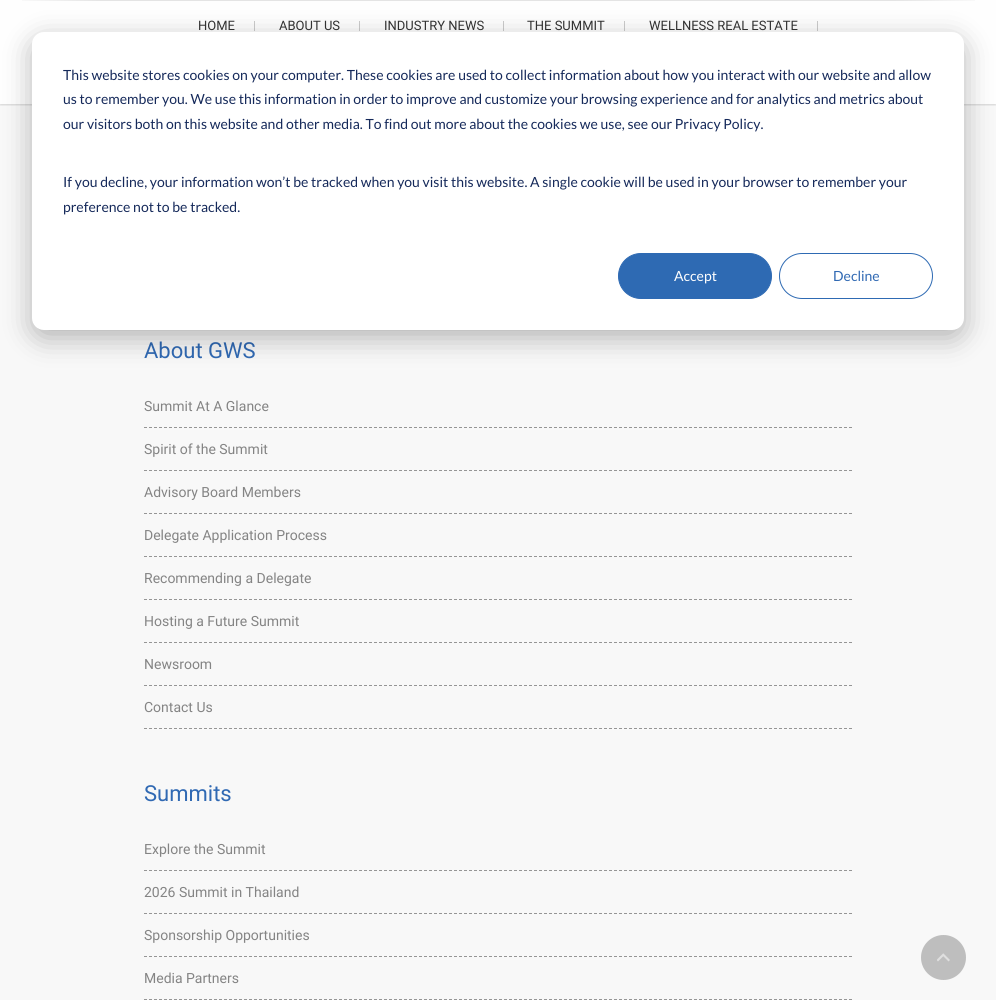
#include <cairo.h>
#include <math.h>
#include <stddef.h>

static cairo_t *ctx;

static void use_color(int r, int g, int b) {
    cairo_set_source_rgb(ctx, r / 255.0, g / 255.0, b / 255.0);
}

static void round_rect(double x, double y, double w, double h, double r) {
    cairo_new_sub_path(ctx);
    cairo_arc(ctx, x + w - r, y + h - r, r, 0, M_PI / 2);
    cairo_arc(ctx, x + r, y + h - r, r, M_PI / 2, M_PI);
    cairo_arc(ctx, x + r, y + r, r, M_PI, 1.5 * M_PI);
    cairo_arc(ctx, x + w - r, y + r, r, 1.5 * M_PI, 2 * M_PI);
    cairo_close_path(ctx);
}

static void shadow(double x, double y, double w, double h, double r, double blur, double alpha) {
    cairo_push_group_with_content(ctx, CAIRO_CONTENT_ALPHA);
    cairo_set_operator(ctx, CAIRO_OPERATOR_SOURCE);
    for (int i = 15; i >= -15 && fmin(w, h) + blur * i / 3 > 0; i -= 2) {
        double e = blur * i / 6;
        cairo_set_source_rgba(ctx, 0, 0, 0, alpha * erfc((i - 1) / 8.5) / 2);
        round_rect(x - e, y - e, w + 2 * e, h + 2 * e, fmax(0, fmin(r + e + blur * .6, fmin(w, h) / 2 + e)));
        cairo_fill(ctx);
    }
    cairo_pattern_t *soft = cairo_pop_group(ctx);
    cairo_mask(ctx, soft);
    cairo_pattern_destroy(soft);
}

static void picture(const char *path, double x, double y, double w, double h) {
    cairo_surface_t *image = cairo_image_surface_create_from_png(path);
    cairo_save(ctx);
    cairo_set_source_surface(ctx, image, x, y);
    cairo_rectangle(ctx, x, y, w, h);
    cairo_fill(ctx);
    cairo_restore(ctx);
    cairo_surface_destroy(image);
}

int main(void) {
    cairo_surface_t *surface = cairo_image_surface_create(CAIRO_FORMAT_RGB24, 996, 1000);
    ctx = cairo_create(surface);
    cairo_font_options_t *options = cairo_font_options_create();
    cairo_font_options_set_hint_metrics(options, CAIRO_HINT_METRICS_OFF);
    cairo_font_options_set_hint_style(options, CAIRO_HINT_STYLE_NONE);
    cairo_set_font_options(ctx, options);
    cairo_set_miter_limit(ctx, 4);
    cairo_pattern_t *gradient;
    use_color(248, 248, 248);
    cairo_paint(ctx);
    use_color(254, 254, 254);
    cairo_rectangle(ctx, 0, 0, 996, 104);
    cairo_fill(ctx);
    cairo_save(ctx);
    cairo_rectangle(ctx, 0, 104, 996, 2);
    cairo_clip(ctx);
    use_color(0, 0, 0);
    shadow(0, 1, 996, 104, 0, 1, 0.15);
    cairo_restore(ctx);
    gradient = cairo_pattern_create_linear(0, 0.5, 996, 0.5);
    cairo_pattern_add_color_stop_rgba(gradient, 0, 0, 0, 0, 0);
    cairo_pattern_add_color_stop_rgba(gradient, 0.1, 0, 0, 0, 0.1);
    cairo_pattern_add_color_stop_rgba(gradient, 0.9, 0, 0, 0, 0.1);
    cairo_pattern_add_color_stop_rgba(gradient, 1, 0, 0, 0, 0);
    cairo_set_source(ctx, gradient);
    cairo_pattern_destroy(gradient);
    cairo_rectangle(ctx, 22, 0, 953, 1);
    cairo_fill(ctx);
    cairo_select_font_face(ctx, "Roboto", CAIRO_FONT_SLANT_NORMAL, CAIRO_FONT_WEIGHT_NORMAL);
    cairo_set_font_size(ctx, 13);
    use_color(51, 51, 51);
    cairo_move_to(ctx, 198, 30);
    cairo_show_text(ctx, "HOME");
    use_color(203, 203, 203);
    cairo_rectangle(ctx, 254, 21, 1, 10);
    cairo_fill(ctx);
    use_color(51, 51, 51);
    cairo_move_to(ctx, 279, 30);
    cairo_show_text(ctx, "ABOUT US");
    use_color(203, 203, 203);
    cairo_rectangle(ctx, 359, 21, 1, 10);
    cairo_fill(ctx);
    use_color(51, 51, 51);
    cairo_move_to(ctx, 384, 30);
    cairo_show_text(ctx, "INDUSTRY NEWS");
    use_color(203, 203, 203);
    cairo_rectangle(ctx, 503, 21, 1, 10);
    cairo_fill(ctx);
    use_color(51, 51, 51);
    cairo_move_to(ctx, 527, 30);
    cairo_show_text(ctx, "THE SUMMIT");
    use_color(203, 203, 203);
    cairo_rectangle(ctx, 624, 21, 1, 10);
    cairo_fill(ctx);
    use_color(51, 51, 51);
    cairo_move_to(ctx, 649, 30);
    cairo_show_text(ctx, "WELLNESS REAL ESTATE");
    use_color(203, 203, 203);
    cairo_rectangle(ctx, 817, 21, 1, 10);
    cairo_fill(ctx);
    cairo_set_font_size(ctx, 22);
    use_color(48, 105, 179);
    cairo_move_to(ctx, 144, 358);
    cairo_show_text(ctx, "About GWS");
    cairo_new_path(ctx);
    cairo_move_to(ctx, 144, 427.5);
    cairo_line_to(ctx, 852, 427.5);
    use_color(149, 149, 149);
    cairo_set_line_width(ctx, 1);
    cairo_set_dash(ctx, (double[]){3, 2}, 2, 0);
    cairo_stroke(ctx);
    cairo_set_font_size(ctx, 14);
    use_color(132, 132, 132);
    cairo_move_to(ctx, 144, 411);
    cairo_show_text(ctx, "Summit At A Glance");
    cairo_new_path(ctx);
    cairo_move_to(ctx, 144, 470.5);
    cairo_line_to(ctx, 852, 470.5);
    use_color(149, 149, 149);
    cairo_stroke(ctx);
    use_color(132, 132, 132);
    cairo_move_to(ctx, 144, 454);
    cairo_show_text(ctx, "Spirit of the Summit");
    cairo_new_path(ctx);
    cairo_move_to(ctx, 144, 513.5);
    cairo_line_to(ctx, 852, 513.5);
    use_color(149, 149, 149);
    cairo_stroke(ctx);
    use_color(132, 132, 132);
    cairo_move_to(ctx, 144, 497);
    cairo_show_text(ctx, "Advisory Board Members");
    cairo_new_path(ctx);
    cairo_move_to(ctx, 144, 556.5);
    cairo_line_to(ctx, 852, 556.5);
    use_color(149, 149, 149);
    cairo_stroke(ctx);
    use_color(132, 132, 132);
    cairo_move_to(ctx, 144, 540);
    cairo_show_text(ctx, "Delegate Application Process");
    cairo_new_path(ctx);
    cairo_move_to(ctx, 144, 599.5);
    cairo_line_to(ctx, 852, 599.5);
    use_color(149, 149, 149);
    cairo_stroke(ctx);
    use_color(132, 132, 132);
    cairo_move_to(ctx, 144, 583);
    cairo_show_text(ctx, "Recommending a Delegate");
    cairo_new_path(ctx);
    cairo_move_to(ctx, 144, 642.5);
    cairo_line_to(ctx, 852, 642.5);
    use_color(149, 149, 149);
    cairo_stroke(ctx);
    use_color(132, 132, 132);
    cairo_move_to(ctx, 144, 626);
    cairo_show_text(ctx, "Hosting a Future Summit");
    cairo_new_path(ctx);
    cairo_move_to(ctx, 144, 685.5);
    cairo_line_to(ctx, 852, 685.5);
    use_color(149, 149, 149);
    cairo_stroke(ctx);
    use_color(132, 132, 132);
    cairo_move_to(ctx, 144, 669);
    cairo_show_text(ctx, "Newsroom");
    cairo_new_path(ctx);
    cairo_move_to(ctx, 144, 728.5);
    cairo_line_to(ctx, 852, 728.5);
    use_color(149, 149, 149);
    cairo_stroke(ctx);
    use_color(132, 132, 132);
    cairo_move_to(ctx, 144, 712);
    cairo_show_text(ctx, "Contact Us");
    cairo_set_font_size(ctx, 22);
    use_color(48, 105, 179);
    cairo_move_to(ctx, 144, 801);
    cairo_show_text(ctx, "Summits");
    cairo_new_path(ctx);
    cairo_move_to(ctx, 144, 870.5);
    cairo_line_to(ctx, 852, 870.5);
    use_color(149, 149, 149);
    cairo_stroke(ctx);
    cairo_set_font_size(ctx, 14);
    use_color(132, 132, 132);
    cairo_move_to(ctx, 144, 854);
    cairo_show_text(ctx, "Explore the Summit");
    cairo_new_path(ctx);
    cairo_move_to(ctx, 144, 913.5);
    cairo_line_to(ctx, 852, 913.5);
    use_color(149, 149, 149);
    cairo_stroke(ctx);
    use_color(132, 132, 132);
    cairo_move_to(ctx, 144, 897);
    cairo_show_text(ctx, "2026 Summit in Thailand");
    cairo_new_path(ctx);
    cairo_move_to(ctx, 144, 956.5);
    cairo_line_to(ctx, 852, 956.5);
    use_color(149, 149, 149);
    cairo_stroke(ctx);
    use_color(132, 132, 132);
    cairo_move_to(ctx, 144, 940);
    cairo_show_text(ctx, "Sponsorship Opportunities");
    cairo_new_path(ctx);
    cairo_move_to(ctx, 144, 999.5);
    cairo_line_to(ctx, 852, 999.5);
    use_color(149, 149, 149);
    cairo_stroke(ctx);
    use_color(132, 132, 132);
    cairo_move_to(ctx, 144, 983);
    cairo_show_text(ctx, "Media Partners");
    use_color(190, 190, 190);
    cairo_new_path(ctx);
    cairo_arc(ctx, 943.5, 957.5, 22.5, 0, 2 * M_PI);
    cairo_fill(ctx);
    picture("img1.png", 937, 953, 13, 9);
    use_color(0, 0, 0);
    shadow(32, 40, 932, 298, 12, 14, 0.28);
    use_color(255, 255, 255);
    round_rect(32, 32, 932, 298, 12);
    cairo_fill(ctx);
    cairo_select_font_face(ctx, "Lato", CAIRO_FONT_SLANT_NORMAL, CAIRO_FONT_WEIGHT_NORMAL);
    use_color(21, 41, 90);
    cairo_move_to(ctx, 63, 80);
    cairo_show_text(ctx, "This website stores cookies on your computer. These cookies are used to collect information about how you interact with our website and allow");
    cairo_move_to(ctx, 63, 104);
    cairo_show_text(ctx, "us to remember you. We use this information in order to improve and customize your browsing experience and for analytics and metrics about");
    cairo_move_to(ctx, 63, 129);
    cairo_show_text(ctx, "our visitors both on this website and other media. To find out more about the cookies we use, see our Privacy Policy.");
    cairo_move_to(ctx, 63, 187);
    cairo_show_text(ctx, "If you decline, your information won’t be tracked when you visit this website. A single cookie will be used in your browser to remember your");
    cairo_move_to(ctx, 63, 212);
    cairo_show_text(ctx, "preference not to be tracked.");
    use_color(46, 106, 179);
    round_rect(618.5, 253.5, 153, 45, 22.5);
    cairo_fill_preserve(ctx);
    cairo_set_dash(ctx, NULL, 0, 0);
    cairo_stroke(ctx);
    use_color(255, 255, 255);
    cairo_move_to(ctx, 674, 281);
    cairo_show_text(ctx, "Accept");
    round_rect(779.5, 253.5, 153, 45, 22.5);
    use_color(46, 106, 179);
    cairo_stroke(ctx);
    use_color(48, 105, 179);
    cairo_move_to(ctx, 833, 281);
    cairo_show_text(ctx, "Decline");
    cairo_surface_write_to_png(surface, "result.png");
    cairo_font_options_destroy(options);
    cairo_destroy(ctx);
    cairo_surface_destroy(surface);
    return 0;
}
